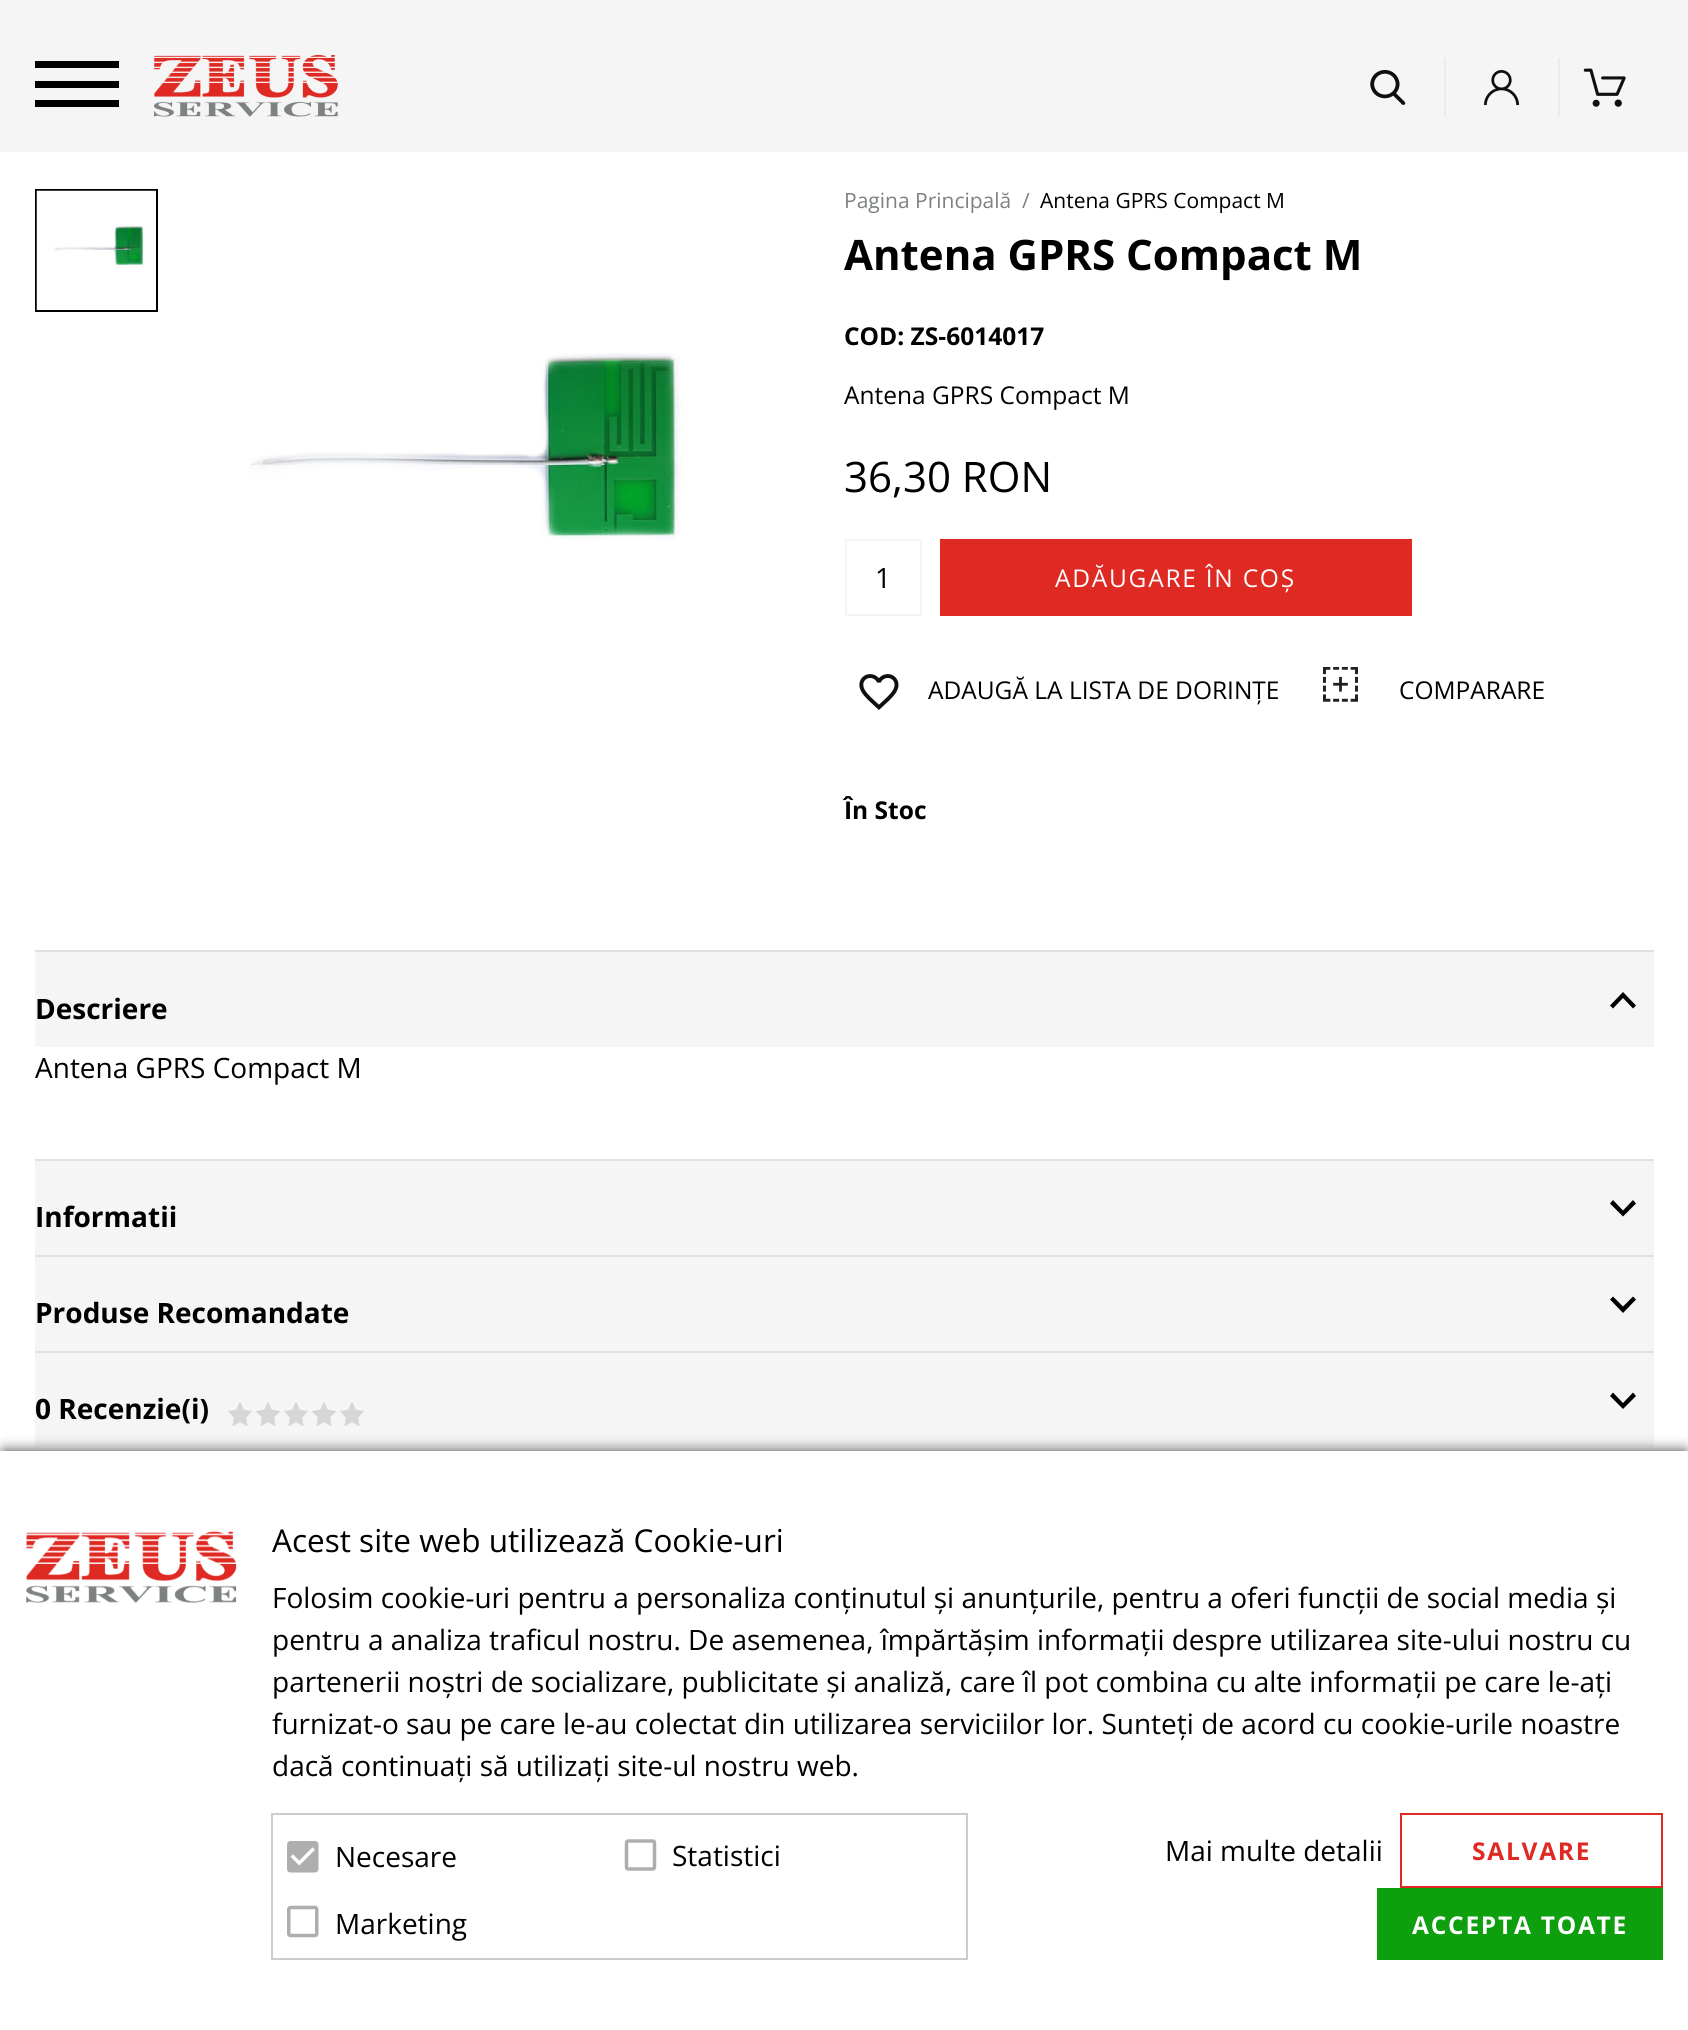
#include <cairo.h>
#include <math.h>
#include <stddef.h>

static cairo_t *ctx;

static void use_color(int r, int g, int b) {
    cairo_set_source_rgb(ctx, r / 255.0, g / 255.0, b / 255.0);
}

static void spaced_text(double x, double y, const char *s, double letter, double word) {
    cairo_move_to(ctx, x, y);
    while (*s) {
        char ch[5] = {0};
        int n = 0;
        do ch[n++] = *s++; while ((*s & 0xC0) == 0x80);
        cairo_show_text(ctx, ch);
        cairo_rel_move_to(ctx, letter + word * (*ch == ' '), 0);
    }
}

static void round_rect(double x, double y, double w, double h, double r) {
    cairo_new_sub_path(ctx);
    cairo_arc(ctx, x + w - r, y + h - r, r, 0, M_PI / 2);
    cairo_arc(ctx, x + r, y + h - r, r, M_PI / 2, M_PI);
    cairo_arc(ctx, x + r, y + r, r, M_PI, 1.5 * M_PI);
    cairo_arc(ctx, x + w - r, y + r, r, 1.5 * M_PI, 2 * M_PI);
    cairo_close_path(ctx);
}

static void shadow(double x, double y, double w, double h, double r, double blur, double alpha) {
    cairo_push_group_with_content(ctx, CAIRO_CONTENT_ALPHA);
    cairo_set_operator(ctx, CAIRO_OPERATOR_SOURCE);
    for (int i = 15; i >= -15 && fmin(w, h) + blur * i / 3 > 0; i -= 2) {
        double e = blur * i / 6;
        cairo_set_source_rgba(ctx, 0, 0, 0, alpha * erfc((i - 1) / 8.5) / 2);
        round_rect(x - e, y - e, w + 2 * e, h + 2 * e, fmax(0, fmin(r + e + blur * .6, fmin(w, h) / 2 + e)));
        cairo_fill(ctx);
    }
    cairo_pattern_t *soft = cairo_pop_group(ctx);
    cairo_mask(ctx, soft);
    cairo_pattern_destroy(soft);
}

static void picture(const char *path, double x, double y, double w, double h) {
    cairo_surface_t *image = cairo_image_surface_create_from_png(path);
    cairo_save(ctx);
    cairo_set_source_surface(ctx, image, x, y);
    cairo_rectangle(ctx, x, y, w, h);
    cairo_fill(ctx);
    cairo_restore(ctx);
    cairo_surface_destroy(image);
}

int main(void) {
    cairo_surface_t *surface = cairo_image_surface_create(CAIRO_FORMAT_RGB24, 1688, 2030);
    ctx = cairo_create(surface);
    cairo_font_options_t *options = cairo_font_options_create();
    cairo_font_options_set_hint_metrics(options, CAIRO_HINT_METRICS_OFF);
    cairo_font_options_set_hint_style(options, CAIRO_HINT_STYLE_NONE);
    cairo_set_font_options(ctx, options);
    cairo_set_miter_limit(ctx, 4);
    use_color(255, 255, 255);
    cairo_paint(ctx);
    use_color(245, 245, 245);
    cairo_rectangle(ctx, 0, 0, 1688, 152);
    cairo_fill(ctx);
    use_color(0, 0, 0);
    cairo_rectangle(ctx, 35, 61, 84, 7);
    cairo_fill(ctx);
    cairo_rectangle(ctx, 35, 81, 84, 7);
    cairo_fill(ctx);
    cairo_rectangle(ctx, 35, 100, 84, 7);
    cairo_fill(ctx);
    picture("img1.png", 154, 55, 184, 62);
    picture("img2.png", 1370, 70, 36, 35);
    use_color(235, 235, 235);
    cairo_rectangle(ctx, 1444, 58, 2, 59);
    cairo_fill(ctx);
    picture("img3.png", 1484, 70, 35, 35);
    cairo_rectangle(ctx, 1558, 58, 2, 59);
    cairo_fill(ctx);
    picture("img4.png", 1583, 68, 43, 39);
    cairo_rectangle(ctx, 36, 190, 121, 121);
    use_color(0, 0, 0);
    cairo_stroke(ctx);
    picture("img5.png", 36, 190, 120, 120);
    picture("img6.png", 249, 353, 432, 187);
    cairo_select_font_face(ctx, "Open Sans", CAIRO_FONT_SLANT_NORMAL, CAIRO_FONT_WEIGHT_NORMAL);
    cairo_set_font_size(ctx, 21);
    use_color(125, 129, 130);
    cairo_move_to(ctx, 844, 208);
    cairo_show_text(ctx, "Pagina Principală");
    cairo_move_to(ctx, 1022, 208);
    cairo_show_text(ctx, "/");
    use_color(0, 0, 0);
    cairo_move_to(ctx, 1040, 208);
    cairo_show_text(ctx, "Antena GPRS Compact M");
    cairo_select_font_face(ctx, "Open Sans", CAIRO_FONT_SLANT_NORMAL, CAIRO_FONT_WEIGHT_BOLD);
    cairo_set_font_size(ctx, 42);
    cairo_move_to(ctx, 844, 270);
    cairo_show_text(ctx, "Antena GPRS Compact M");
    cairo_set_font_size(ctx, 24.5);
    cairo_move_to(ctx, 844, 345);
    cairo_show_text(ctx, "COD: ZS-6014017");
    cairo_select_font_face(ctx, "Open Sans", CAIRO_FONT_SLANT_NORMAL, CAIRO_FONT_WEIGHT_NORMAL);
    cairo_move_to(ctx, 844, 404);
    cairo_show_text(ctx, "Antena GPRS Compact M");
    cairo_set_font_size(ctx, 42);
    cairo_move_to(ctx, 844, 492);
    cairo_show_text(ctx, "36,30 RON");
    cairo_rectangle(ctx, 846, 540, 75, 75);
    use_color(245, 245, 245);
    cairo_stroke(ctx);
    cairo_set_font_size(ctx, 28);
    use_color(0, 0, 0);
    cairo_move_to(ctx, 875, 588);
    cairo_show_text(ctx, "1");
    use_color(223, 42, 35);
    cairo_rectangle(ctx, 940, 539, 472, 77);
    cairo_fill(ctx);
    cairo_set_font_size(ctx, 24.5);
    use_color(255, 255, 255);
    spaced_text(1055, 587, "ADĂUGARE ÎN COȘ", 1.75, 0);
    picture("img7.png", 859, 674, 40, 36);
    use_color(0, 0, 0);
    cairo_move_to(ctx, 928, 699);
    cairo_show_text(ctx, "ADAUGĂ LA LISTA DE DORINȚE");
    picture("img8.png", 1323, 667, 35, 35);
    cairo_move_to(ctx, 1399, 699);
    cairo_show_text(ctx, "COMPARARE");
    cairo_select_font_face(ctx, "Open Sans", CAIRO_FONT_SLANT_NORMAL, CAIRO_FONT_WEIGHT_BOLD);
    cairo_move_to(ctx, 844, 819);
    cairo_show_text(ctx, "În Stoc");
    use_color(245, 245, 245);
    cairo_rectangle(ctx, 35, 952, 1619, 95);
    cairo_fill(ctx);
    use_color(0, 0, 0);
    cairo_new_path(ctx);
    cairo_move_to(ctx, 1636, 1005.5);
    cairo_line_to(ctx, 1633, 1008.5);
    cairo_line_to(ctx, 1623, 998);
    cairo_line_to(ctx, 1613, 1008.5);
    cairo_line_to(ctx, 1610, 1005.5);
    cairo_line_to(ctx, 1623, 992);
    cairo_close_path(ctx);
    cairo_fill(ctx);
    use_color(225, 225, 225);
    cairo_rectangle(ctx, 35, 950, 1619, 2);
    cairo_fill(ctx);
    cairo_set_font_size(ctx, 28);
    use_color(0, 0, 0);
    cairo_move_to(ctx, 35, 1019);
    cairo_show_text(ctx, "Descriere");
    cairo_select_font_face(ctx, "Open Sans", CAIRO_FONT_SLANT_NORMAL, CAIRO_FONT_WEIGHT_NORMAL);
    cairo_move_to(ctx, 35, 1078);
    cairo_show_text(ctx, "Antena GPRS Compact M");
    use_color(245, 245, 245);
    cairo_rectangle(ctx, 35, 1161, 1619, 94);
    cairo_fill(ctx);
    use_color(0, 0, 0);
    cairo_new_path(ctx);
    cairo_move_to(ctx, 1610, 1203.5);
    cairo_line_to(ctx, 1613, 1200);
    cairo_line_to(ctx, 1623, 1210.5);
    cairo_line_to(ctx, 1633, 1200);
    cairo_line_to(ctx, 1636, 1203.5);
    cairo_line_to(ctx, 1623, 1216.5);
    cairo_close_path(ctx);
    cairo_fill(ctx);
    use_color(225, 225, 225);
    cairo_rectangle(ctx, 35, 1159, 1619, 2);
    cairo_fill(ctx);
    cairo_select_font_face(ctx, "Open Sans", CAIRO_FONT_SLANT_NORMAL, CAIRO_FONT_WEIGHT_BOLD);
    use_color(0, 0, 0);
    cairo_move_to(ctx, 35, 1227);
    cairo_show_text(ctx, "Informatii");
    use_color(245, 245, 245);
    cairo_rectangle(ctx, 35, 1257, 1619, 94);
    cairo_fill(ctx);
    use_color(0, 0, 0);
    cairo_new_path(ctx);
    cairo_move_to(ctx, 1610, 1299.5);
    cairo_line_to(ctx, 1613, 1296.5);
    cairo_line_to(ctx, 1623, 1306.5);
    cairo_line_to(ctx, 1633, 1296.5);
    cairo_line_to(ctx, 1636, 1299.5);
    cairo_line_to(ctx, 1623, 1313);
    cairo_close_path(ctx);
    cairo_fill(ctx);
    use_color(225, 225, 225);
    cairo_rectangle(ctx, 35, 1255, 1619, 2);
    cairo_fill(ctx);
    use_color(0, 0, 0);
    cairo_move_to(ctx, 35, 1323);
    cairo_show_text(ctx, "Produse Recomandate");
    use_color(245, 245, 245);
    cairo_rectangle(ctx, 35, 1353, 1619, 94);
    cairo_fill(ctx);
    use_color(0, 0, 0);
    cairo_new_path(ctx);
    cairo_move_to(ctx, 1610, 1396);
    cairo_line_to(ctx, 1613, 1392.5);
    cairo_line_to(ctx, 1623, 1403);
    cairo_line_to(ctx, 1633, 1392.5);
    cairo_line_to(ctx, 1636, 1396);
    cairo_line_to(ctx, 1623, 1409);
    cairo_close_path(ctx);
    cairo_fill(ctx);
    use_color(225, 225, 225);
    cairo_rectangle(ctx, 35, 1351, 1619, 2);
    cairo_fill(ctx);
    use_color(0, 0, 0);
    cairo_move_to(ctx, 35, 1419);
    cairo_show_text(ctx, "0 Recenzie(i)");
    picture("img9.png", 228, 1402, 136, 25);
    use_color(0, 0, 0);
    shadow(4, 1451, 1681, 572, 0, 7, 0.75);
    use_color(255, 255, 255);
    cairo_rectangle(ctx, 0, 1451, 1688, 579);
    cairo_fill(ctx);
    picture("img10.png", 26, 1531, 211, 72);
    cairo_select_font_face(ctx, "Open Sans", CAIRO_FONT_SLANT_NORMAL, CAIRO_FONT_WEIGHT_NORMAL);
    cairo_set_font_size(ctx, 31.5);
    use_color(0, 0, 0);
    cairo_move_to(ctx, 272, 1552);
    cairo_show_text(ctx, "Acest site web utilizează Cookie-uri");
    cairo_set_font_size(ctx, 28);
    cairo_move_to(ctx, 272, 1608);
    cairo_show_text(ctx, "Folosim cookie-uri pentru a personaliza conținutul și anunțurile, pentru a oferi funcții de social media și");
    cairo_move_to(ctx, 272, 1650);
    cairo_show_text(ctx, "pentru a analiza traficul nostru. De asemenea, împărtășim informații despre utilizarea site-ului nostru cu");
    cairo_move_to(ctx, 272, 1692);
    cairo_show_text(ctx, "partenerii noștri de socializare, publicitate și analiză, care îl pot combina cu alte informații pe care le-ați");
    cairo_move_to(ctx, 272, 1734);
    cairo_show_text(ctx, "furnizat-o sau pe care le-au colectat din utilizarea serviciilor lor. Sunteți de acord cu cookie-urile noastre");
    cairo_move_to(ctx, 272, 1776);
    cairo_show_text(ctx, "dacă continuați să utilizați site-ul nostru web.");
    cairo_rectangle(ctx, 272, 1814, 695, 145);
    use_color(204, 204, 204);
    cairo_stroke(ctx);
    picture("img11.png", 287, 1841, 32, 32);
    use_color(0, 0, 0);
    cairo_move_to(ctx, 335, 1867);
    cairo_show_text(ctx, "Necesare");
    picture("img12.png", 624, 1839, 33, 32);
    cairo_move_to(ctx, 672, 1866);
    cairo_show_text(ctx, "Statistici");
    picture("img13.png", 287, 1905, 32, 33);
    cairo_move_to(ctx, 335, 1934);
    cairo_show_text(ctx, "Marketing");
    cairo_move_to(ctx, 1165, 1861);
    cairo_show_text(ctx, "Mai multe detalii");
    cairo_rectangle(ctx, 1401, 1814, 261, 73);
    use_color(223, 42, 35);
    cairo_stroke(ctx);
    cairo_select_font_face(ctx, "Open Sans", CAIRO_FONT_SLANT_NORMAL, CAIRO_FONT_WEIGHT_BOLD);
    cairo_set_font_size(ctx, 24.5);
    spaced_text(1472, 1860, "SALVARE", 1.75, 0);
    use_color(13, 159, 13);
    cairo_rectangle(ctx, 1377, 1888, 286, 72);
    cairo_fill(ctx);
    use_color(255, 255, 255);
    spaced_text(1412, 1934, "ACCEPTA TOATE", 1.75, 0);
    cairo_surface_write_to_png(surface, "result.png");
    cairo_font_options_destroy(options);
    cairo_destroy(ctx);
    cairo_surface_destroy(surface);
    return 0;
}
